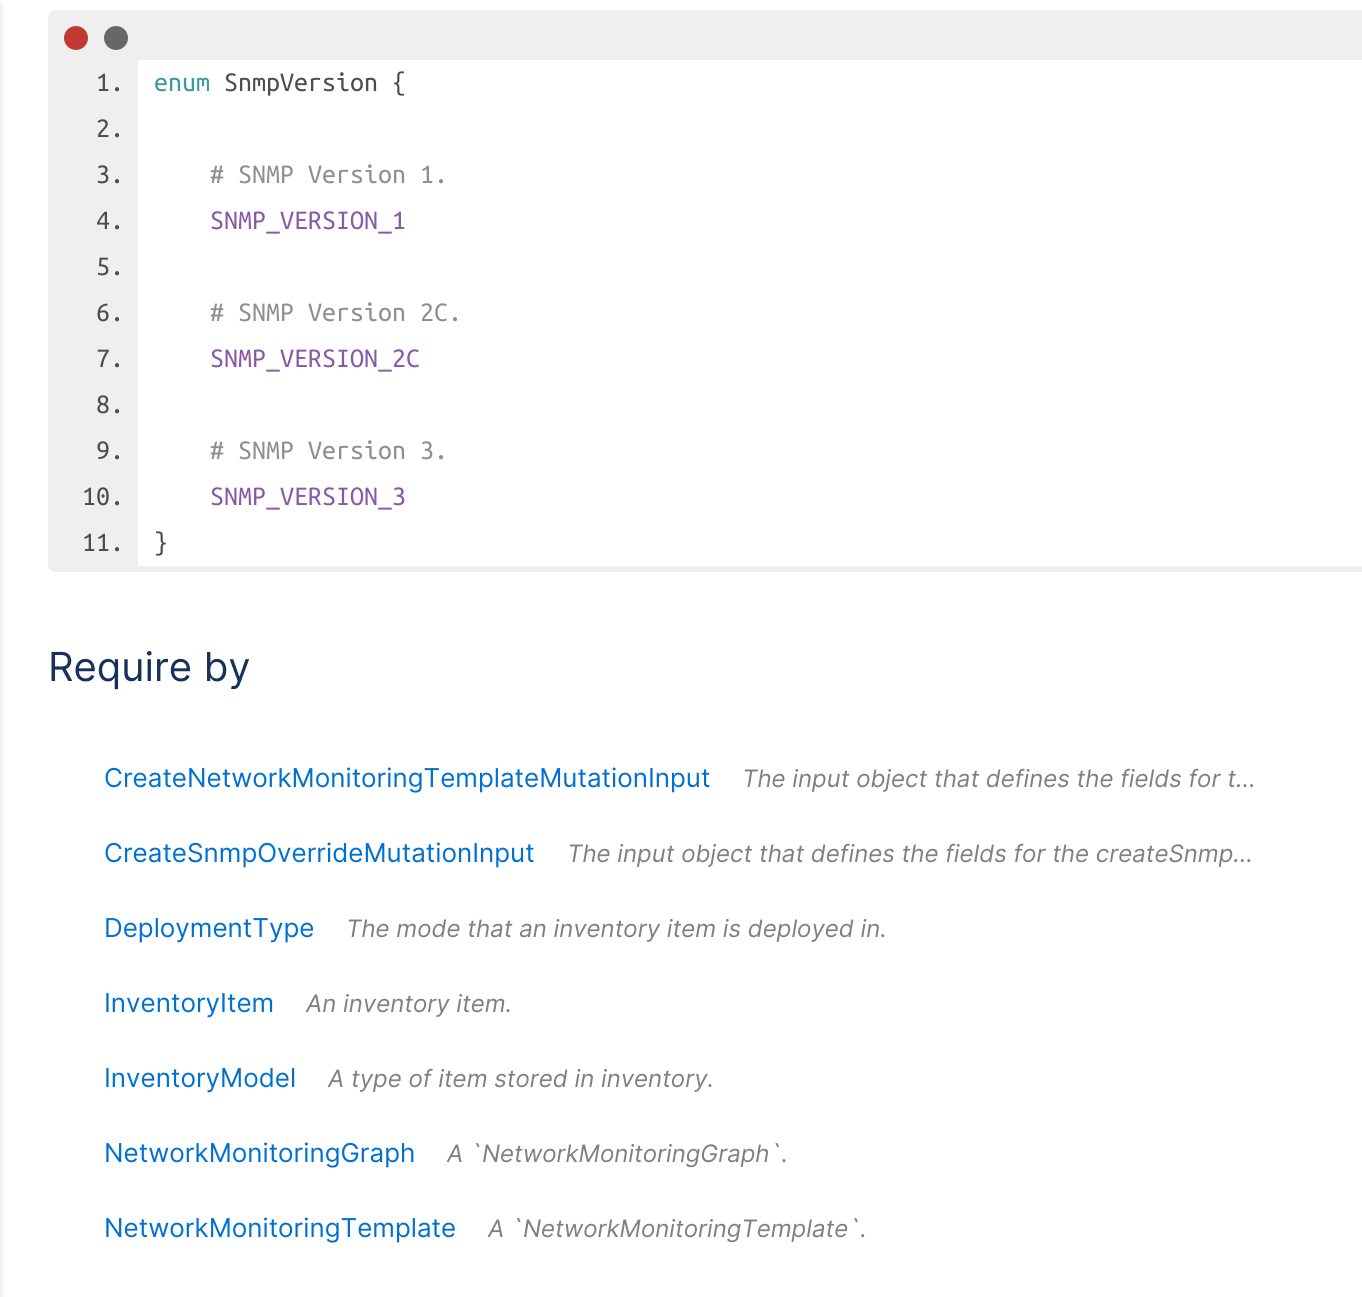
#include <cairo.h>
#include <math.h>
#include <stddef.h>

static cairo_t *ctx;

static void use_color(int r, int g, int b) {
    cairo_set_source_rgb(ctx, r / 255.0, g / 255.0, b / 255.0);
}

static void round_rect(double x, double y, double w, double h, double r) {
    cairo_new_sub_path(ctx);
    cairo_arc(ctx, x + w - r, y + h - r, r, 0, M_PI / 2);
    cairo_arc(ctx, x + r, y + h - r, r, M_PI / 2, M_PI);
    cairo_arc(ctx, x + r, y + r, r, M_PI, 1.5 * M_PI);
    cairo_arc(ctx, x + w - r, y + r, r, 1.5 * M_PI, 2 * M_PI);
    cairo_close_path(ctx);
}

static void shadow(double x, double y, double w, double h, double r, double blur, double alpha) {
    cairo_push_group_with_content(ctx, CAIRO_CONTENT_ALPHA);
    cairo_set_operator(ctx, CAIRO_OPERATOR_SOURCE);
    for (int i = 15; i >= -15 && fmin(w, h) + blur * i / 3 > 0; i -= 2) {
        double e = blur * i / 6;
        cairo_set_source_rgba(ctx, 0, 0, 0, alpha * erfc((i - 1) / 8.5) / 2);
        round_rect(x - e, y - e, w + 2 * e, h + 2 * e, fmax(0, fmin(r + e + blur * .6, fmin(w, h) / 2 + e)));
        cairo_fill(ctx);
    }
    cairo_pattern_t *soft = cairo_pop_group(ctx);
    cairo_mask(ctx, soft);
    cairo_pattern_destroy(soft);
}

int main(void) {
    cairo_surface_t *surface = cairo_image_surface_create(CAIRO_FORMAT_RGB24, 1362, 1297);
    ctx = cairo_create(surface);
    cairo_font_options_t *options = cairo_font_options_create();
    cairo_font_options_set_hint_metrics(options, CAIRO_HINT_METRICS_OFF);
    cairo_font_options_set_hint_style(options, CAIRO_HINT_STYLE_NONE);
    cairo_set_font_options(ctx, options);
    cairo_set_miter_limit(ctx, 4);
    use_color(255, 255, 255);
    cairo_paint(ctx);
    use_color(0, 0, 0);
    shadow(-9, 4, 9, 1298, 0, 3, 0.16);
    use_color(239, 239, 239);
    cairo_new_path(ctx);
    cairo_move_to(ctx, 56, 10);
    cairo_line_to(ctx, 1362, 10);
    cairo_line_to(ctx, 1362, 572);
    cairo_line_to(ctx, 56, 572);
    cairo_curve_to(ctx, 51.5, 572, 48, 568.5, 48, 564);
    cairo_line_to(ctx, 48, 18);
    cairo_curve_to(ctx, 48, 13.5, 51.5, 10, 56, 10);
    cairo_close_path(ctx);
    cairo_fill(ctx);
    use_color(194, 57, 52);
    cairo_arc(ctx, 76, 38, 12, 0, 2 * M_PI);
    cairo_fill(ctx);
    use_color(103, 103, 101);
    cairo_arc(ctx, 116, 38, 12, 0, 2 * M_PI);
    cairo_fill(ctx);
    use_color(255, 255, 255);
    cairo_rectangle(ctx, 138, 60, 1224, 506);
    cairo_fill(ctx);
    cairo_select_font_face(ctx, "Ubuntu Mono", CAIRO_FONT_SLANT_NORMAL, CAIRO_FONT_WEIGHT_NORMAL);
    cairo_set_font_size(ctx, 28);
    use_color(77, 77, 76);
    cairo_move_to(ctx, 96, 91);
    cairo_show_text(ctx, "1.");
    use_color(62, 153, 159);
    cairo_move_to(ctx, 154, 91);
    cairo_show_text(ctx, "enum");
    use_color(77, 77, 76);
    cairo_move_to(ctx, 224, 91);
    cairo_show_text(ctx, "SnmpVersion {");
    cairo_move_to(ctx, 96, 137);
    cairo_show_text(ctx, "2.");
    cairo_move_to(ctx, 96, 183);
    cairo_show_text(ctx, "3.");
    use_color(142, 144, 140);
    cairo_move_to(ctx, 210, 183);
    cairo_show_text(ctx, "# SNMP Version 1.");
    use_color(77, 77, 76);
    cairo_move_to(ctx, 96, 229);
    cairo_show_text(ctx, "4.");
    use_color(137, 89, 168);
    cairo_move_to(ctx, 210, 229);
    cairo_show_text(ctx, "SNMP_VERSION_1");
    use_color(77, 77, 76);
    cairo_move_to(ctx, 96, 275);
    cairo_show_text(ctx, "5.");
    cairo_move_to(ctx, 96, 321);
    cairo_show_text(ctx, "6.");
    use_color(142, 144, 140);
    cairo_move_to(ctx, 210, 321);
    cairo_show_text(ctx, "# SNMP Version 2C.");
    use_color(77, 77, 76);
    cairo_move_to(ctx, 96, 367);
    cairo_show_text(ctx, "7.");
    use_color(137, 89, 168);
    cairo_move_to(ctx, 210, 367);
    cairo_show_text(ctx, "SNMP_VERSION_2C");
    use_color(77, 77, 76);
    cairo_move_to(ctx, 96, 413);
    cairo_show_text(ctx, "8.");
    cairo_move_to(ctx, 96, 459);
    cairo_show_text(ctx, "9.");
    use_color(142, 144, 140);
    cairo_move_to(ctx, 210, 459);
    cairo_show_text(ctx, "# SNMP Version 3.");
    use_color(77, 77, 76);
    cairo_move_to(ctx, 82, 505);
    cairo_show_text(ctx, "10.");
    use_color(137, 89, 168);
    cairo_move_to(ctx, 210, 505);
    cairo_show_text(ctx, "SNMP_VERSION_3");
    use_color(77, 77, 76);
    cairo_move_to(ctx, 82, 551);
    cairo_show_text(ctx, "11.");
    cairo_move_to(ctx, 154, 551);
    cairo_show_text(ctx, "}");
    cairo_select_font_face(ctx, "Inter", CAIRO_FONT_SLANT_NORMAL, CAIRO_FONT_WEIGHT_NORMAL);
    cairo_set_font_size(ctx, 40);
    use_color(22, 50, 92);
    cairo_move_to(ctx, 48, 681);
    cairo_show_text(ctx, "Require by");
    cairo_set_font_size(ctx, 26);
    use_color(0, 112, 210);
    cairo_move_to(ctx, 104, 787);
    cairo_show_text(ctx, "CreateNetworkMonitoringTemplateMutationInput");
    cairo_select_font_face(ctx, "Inter", CAIRO_FONT_SLANT_ITALIC, CAIRO_FONT_WEIGHT_NORMAL);
    cairo_set_font_size(ctx, 24);
    use_color(128, 128, 128);
    cairo_move_to(ctx, 742, 787);
    cairo_show_text(ctx, "The input object that defines the fields for t…");
    cairo_select_font_face(ctx, "Inter", CAIRO_FONT_SLANT_NORMAL, CAIRO_FONT_WEIGHT_NORMAL);
    cairo_set_font_size(ctx, 26);
    use_color(0, 112, 210);
    cairo_move_to(ctx, 104, 862);
    cairo_show_text(ctx, "CreateSnmpOverrideMutationInput");
    cairo_select_font_face(ctx, "Inter", CAIRO_FONT_SLANT_ITALIC, CAIRO_FONT_WEIGHT_NORMAL);
    cairo_set_font_size(ctx, 24);
    use_color(128, 128, 128);
    cairo_move_to(ctx, 567, 862);
    cairo_show_text(ctx, "The input object that defines the fields for the createSnmp…");
    cairo_select_font_face(ctx, "Inter", CAIRO_FONT_SLANT_NORMAL, CAIRO_FONT_WEIGHT_NORMAL);
    cairo_set_font_size(ctx, 26);
    use_color(0, 112, 210);
    cairo_move_to(ctx, 104, 937);
    cairo_show_text(ctx, "DeploymentType");
    cairo_select_font_face(ctx, "Inter", CAIRO_FONT_SLANT_ITALIC, CAIRO_FONT_WEIGHT_NORMAL);
    cairo_set_font_size(ctx, 24);
    use_color(128, 128, 128);
    cairo_move_to(ctx, 346, 937);
    cairo_show_text(ctx, "The mode that an inventory item is deployed in.");
    cairo_select_font_face(ctx, "Inter", CAIRO_FONT_SLANT_NORMAL, CAIRO_FONT_WEIGHT_NORMAL);
    cairo_set_font_size(ctx, 26);
    use_color(0, 112, 210);
    cairo_move_to(ctx, 104, 1012);
    cairo_show_text(ctx, "InventoryItem");
    cairo_select_font_face(ctx, "Inter", CAIRO_FONT_SLANT_ITALIC, CAIRO_FONT_WEIGHT_NORMAL);
    cairo_set_font_size(ctx, 24);
    use_color(128, 128, 128);
    cairo_move_to(ctx, 306, 1012);
    cairo_show_text(ctx, "An inventory item.");
    cairo_select_font_face(ctx, "Inter", CAIRO_FONT_SLANT_NORMAL, CAIRO_FONT_WEIGHT_NORMAL);
    cairo_set_font_size(ctx, 26);
    use_color(0, 112, 210);
    cairo_move_to(ctx, 104, 1087);
    cairo_show_text(ctx, "InventoryModel");
    cairo_select_font_face(ctx, "Inter", CAIRO_FONT_SLANT_ITALIC, CAIRO_FONT_WEIGHT_NORMAL);
    cairo_set_font_size(ctx, 24);
    use_color(128, 128, 128);
    cairo_move_to(ctx, 328, 1087);
    cairo_show_text(ctx, "A type of item stored in inventory.");
    cairo_select_font_face(ctx, "Inter", CAIRO_FONT_SLANT_NORMAL, CAIRO_FONT_WEIGHT_NORMAL);
    cairo_set_font_size(ctx, 26);
    use_color(0, 112, 210);
    cairo_move_to(ctx, 104, 1162);
    cairo_show_text(ctx, "NetworkMonitoringGraph");
    cairo_select_font_face(ctx, "Inter", CAIRO_FONT_SLANT_ITALIC, CAIRO_FONT_WEIGHT_NORMAL);
    cairo_set_font_size(ctx, 24);
    use_color(128, 128, 128);
    cairo_move_to(ctx, 447, 1162);
    cairo_show_text(ctx, "A `NetworkMonitoringGraph`.");
    cairo_select_font_face(ctx, "Inter", CAIRO_FONT_SLANT_NORMAL, CAIRO_FONT_WEIGHT_NORMAL);
    cairo_set_font_size(ctx, 26);
    use_color(0, 112, 210);
    cairo_move_to(ctx, 104, 1237);
    cairo_show_text(ctx, "NetworkMonitoringTemplate");
    cairo_select_font_face(ctx, "Inter", CAIRO_FONT_SLANT_ITALIC, CAIRO_FONT_WEIGHT_NORMAL);
    cairo_set_font_size(ctx, 24);
    use_color(128, 128, 128);
    cairo_move_to(ctx, 488, 1237);
    cairo_show_text(ctx, "A `NetworkMonitoringTemplate`.");
    cairo_surface_write_to_png(surface, "result.png");
    cairo_font_options_destroy(options);
    cairo_destroy(ctx);
    cairo_surface_destroy(surface);
    return 0;
}
